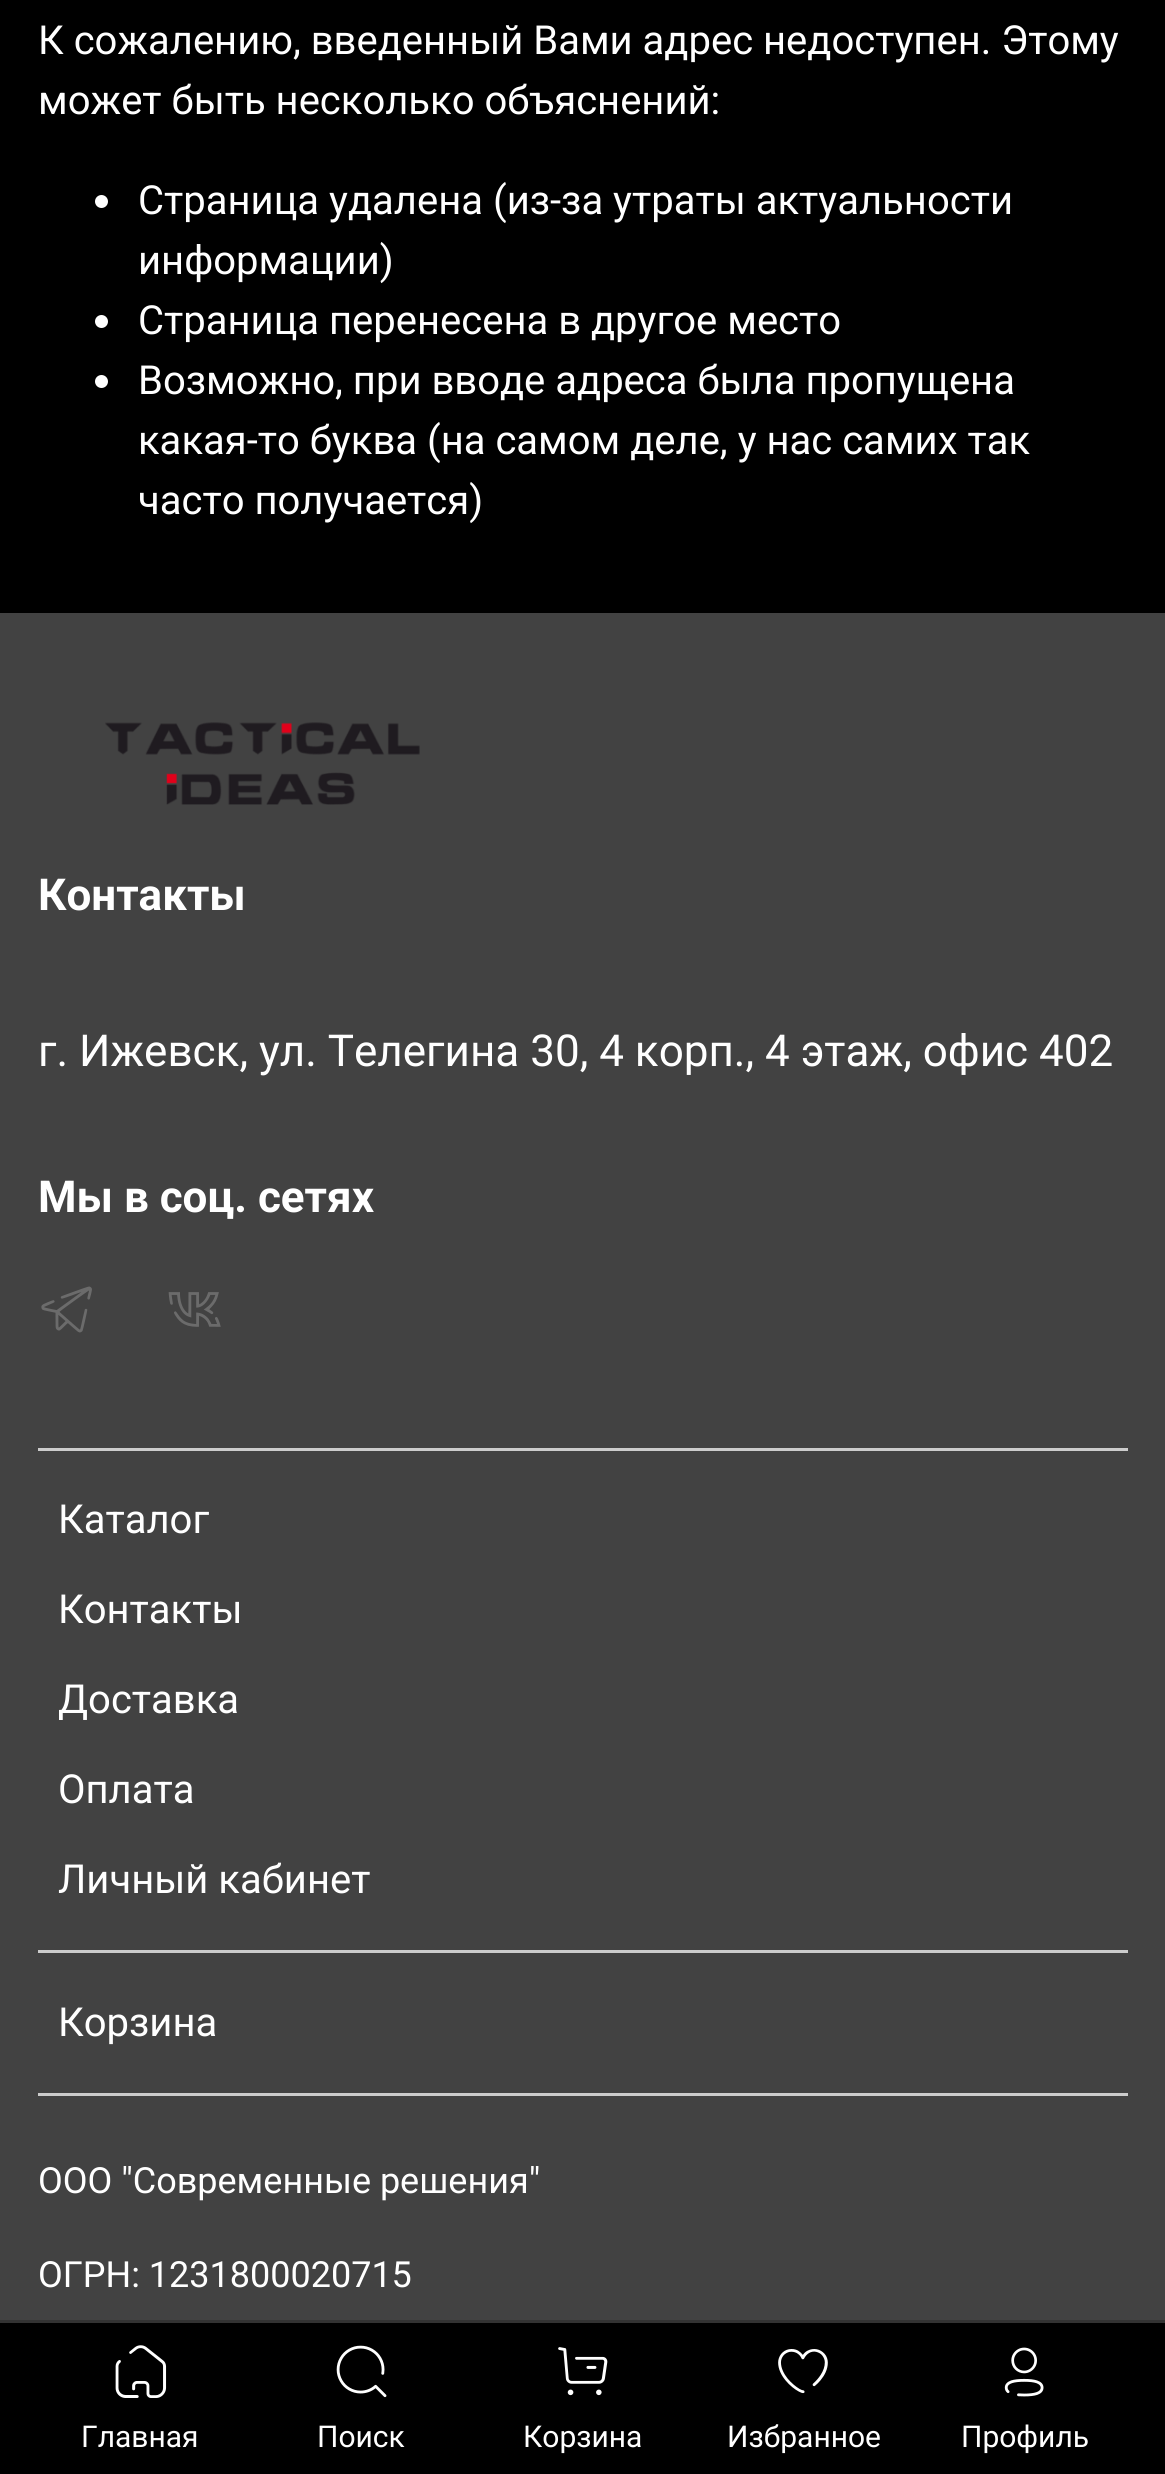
#include <cairo.h>
#include <math.h>
#include <stddef.h>

static cairo_t *ctx;

static void use_color(int r, int g, int b) {
    cairo_set_source_rgb(ctx, r / 255.0, g / 255.0, b / 255.0);
}

static void picture(const char *path, double x, double y, double w, double h) {
    cairo_surface_t *image = cairo_image_surface_create_from_png(path);
    cairo_save(ctx);
    cairo_set_source_surface(ctx, image, x, y);
    cairo_rectangle(ctx, x, y, w, h);
    cairo_fill(ctx);
    cairo_restore(ctx);
    cairo_surface_destroy(image);
}

int main(void) {
    cairo_surface_t *surface = cairo_image_surface_create(CAIRO_FORMAT_RGB24, 1165, 2474);
    ctx = cairo_create(surface);
    cairo_font_options_t *options = cairo_font_options_create();
    cairo_font_options_set_hint_metrics(options, CAIRO_HINT_METRICS_OFF);
    cairo_font_options_set_hint_style(options, CAIRO_HINT_STYLE_NONE);
    cairo_set_font_options(ctx, options);
    cairo_set_miter_limit(ctx, 4);
    use_color(0, 0, 0);
    cairo_paint(ctx);
    cairo_select_font_face(ctx, "Roboto", CAIRO_FONT_SLANT_NORMAL, CAIRO_FONT_WEIGHT_NORMAL);
    cairo_set_font_size(ctx, 40);
    use_color(255, 255, 255);
    cairo_move_to(ctx, 38, 54);
    cairo_show_text(ctx, "К сожалению, введенный Вами адрес недоступен. Этому");
    cairo_move_to(ctx, 38, 114);
    cairo_show_text(ctx, "может быть несколько объяснений:");
    cairo_new_path(ctx);
    cairo_arc(ctx, 101.5, 201.5, 6.5, 0, 2 * M_PI);
    cairo_fill(ctx);
    cairo_move_to(ctx, 138, 214);
    cairo_show_text(ctx, "Страница удалена (из-за утраты актуальности");
    cairo_move_to(ctx, 138, 274);
    cairo_show_text(ctx, "информации)");
    cairo_new_path(ctx);
    cairo_arc(ctx, 101.5, 321.5, 6.5, 0, 2 * M_PI);
    cairo_fill(ctx);
    cairo_move_to(ctx, 138, 334);
    cairo_show_text(ctx, "Страница перенесена в другое место");
    cairo_new_path(ctx);
    cairo_arc(ctx, 101.5, 381.5, 6.5, 0, 2 * M_PI);
    cairo_fill(ctx);
    cairo_move_to(ctx, 138, 394);
    cairo_show_text(ctx, "Возможно, при вводе адреса была пропущена");
    cairo_move_to(ctx, 138, 454);
    cairo_show_text(ctx, "какая-то буква (на самом деле, у нас самих так");
    cairo_move_to(ctx, 138, 514);
    cairo_show_text(ctx, "часто получается)");
    use_color(66, 66, 66);
    cairo_rectangle(ctx, 0, 613, 1165, 1707);
    cairo_fill(ctx);
    picture("img1.png", 105, 722, 315, 83);
    cairo_select_font_face(ctx, "Roboto", CAIRO_FONT_SLANT_NORMAL, CAIRO_FONT_WEIGHT_BOLD);
    cairo_set_font_size(ctx, 44);
    use_color(255, 255, 255);
    cairo_move_to(ctx, 38, 910);
    cairo_show_text(ctx, "Контакты");
    cairo_select_font_face(ctx, "Roboto", CAIRO_FONT_SLANT_NORMAL, CAIRO_FONT_WEIGHT_NORMAL);
    cairo_move_to(ctx, 38, 1066);
    cairo_show_text(ctx, "г. Ижевск, ул. Телегина 30, 4 корп., 4 этаж, офис 402");
    cairo_select_font_face(ctx, "Roboto", CAIRO_FONT_SLANT_NORMAL, CAIRO_FONT_WEIGHT_BOLD);
    cairo_move_to(ctx, 38, 1212);
    cairo_show_text(ctx, "Мы в соц. сетях");
    picture("img2.png", 41, 1286, 51, 47);
    picture("img3.png", 168, 1292, 53, 35);
    use_color(204, 204, 204);
    cairo_rectangle(ctx, 38, 1448, 1090, 3);
    cairo_fill(ctx);
    cairo_select_font_face(ctx, "Roboto", CAIRO_FONT_SLANT_NORMAL, CAIRO_FONT_WEIGHT_NORMAL);
    cairo_set_font_size(ctx, 40);
    use_color(255, 255, 255);
    cairo_move_to(ctx, 58, 1533);
    cairo_show_text(ctx, "Каталог");
    cairo_move_to(ctx, 58, 1623);
    cairo_show_text(ctx, "Контакты");
    cairo_move_to(ctx, 58, 1713);
    cairo_show_text(ctx, "Доставка");
    cairo_move_to(ctx, 58, 1803);
    cairo_show_text(ctx, "Оплата");
    cairo_move_to(ctx, 58, 1893);
    cairo_show_text(ctx, "Личный кабинет");
    use_color(204, 204, 204);
    cairo_rectangle(ctx, 38, 1950, 1090, 3);
    cairo_fill(ctx);
    cairo_rectangle(ctx, 38, 2093, 1090, 3);
    cairo_fill(ctx);
    use_color(255, 255, 255);
    cairo_move_to(ctx, 58, 2036);
    cairo_show_text(ctx, "Корзина");
    cairo_set_font_size(ctx, 36);
    cairo_move_to(ctx, 38, 2193);
    cairo_show_text(ctx, "ООО \"Современные решения\"");
    cairo_move_to(ctx, 38, 2287);
    cairo_show_text(ctx, "ОГРН: 1231800020715");
    use_color(51, 51, 51);
    cairo_rectangle(ctx, 0, 2320, 1165, 3);
    cairo_fill(ctx);
    picture("img4.png", 115, 2345, 52, 53);
    cairo_set_font_size(ctx, 30);
    use_color(255, 255, 255);
    cairo_move_to(ctx, 81, 2447);
    cairo_show_text(ctx, "Главная");
    picture("img5.png", 336, 2345, 51, 53);
    cairo_move_to(ctx, 317, 2447);
    cairo_show_text(ctx, "Поиск");
    picture("img6.png", 558, 2347, 50, 49);
    cairo_move_to(ctx, 523, 2447);
    cairo_show_text(ctx, "Корзина");
    picture("img7.png", 778, 2349, 50, 45);
    cairo_move_to(ctx, 727, 2447);
    cairo_show_text(ctx, "Избранное");
    picture("img8.png", 1004, 2347, 40, 50);
    cairo_move_to(ctx, 961, 2447);
    cairo_show_text(ctx, "Профиль");
    cairo_surface_write_to_png(surface, "result.png");
    cairo_font_options_destroy(options);
    cairo_destroy(ctx);
    cairo_surface_destroy(surface);
    return 0;
}
